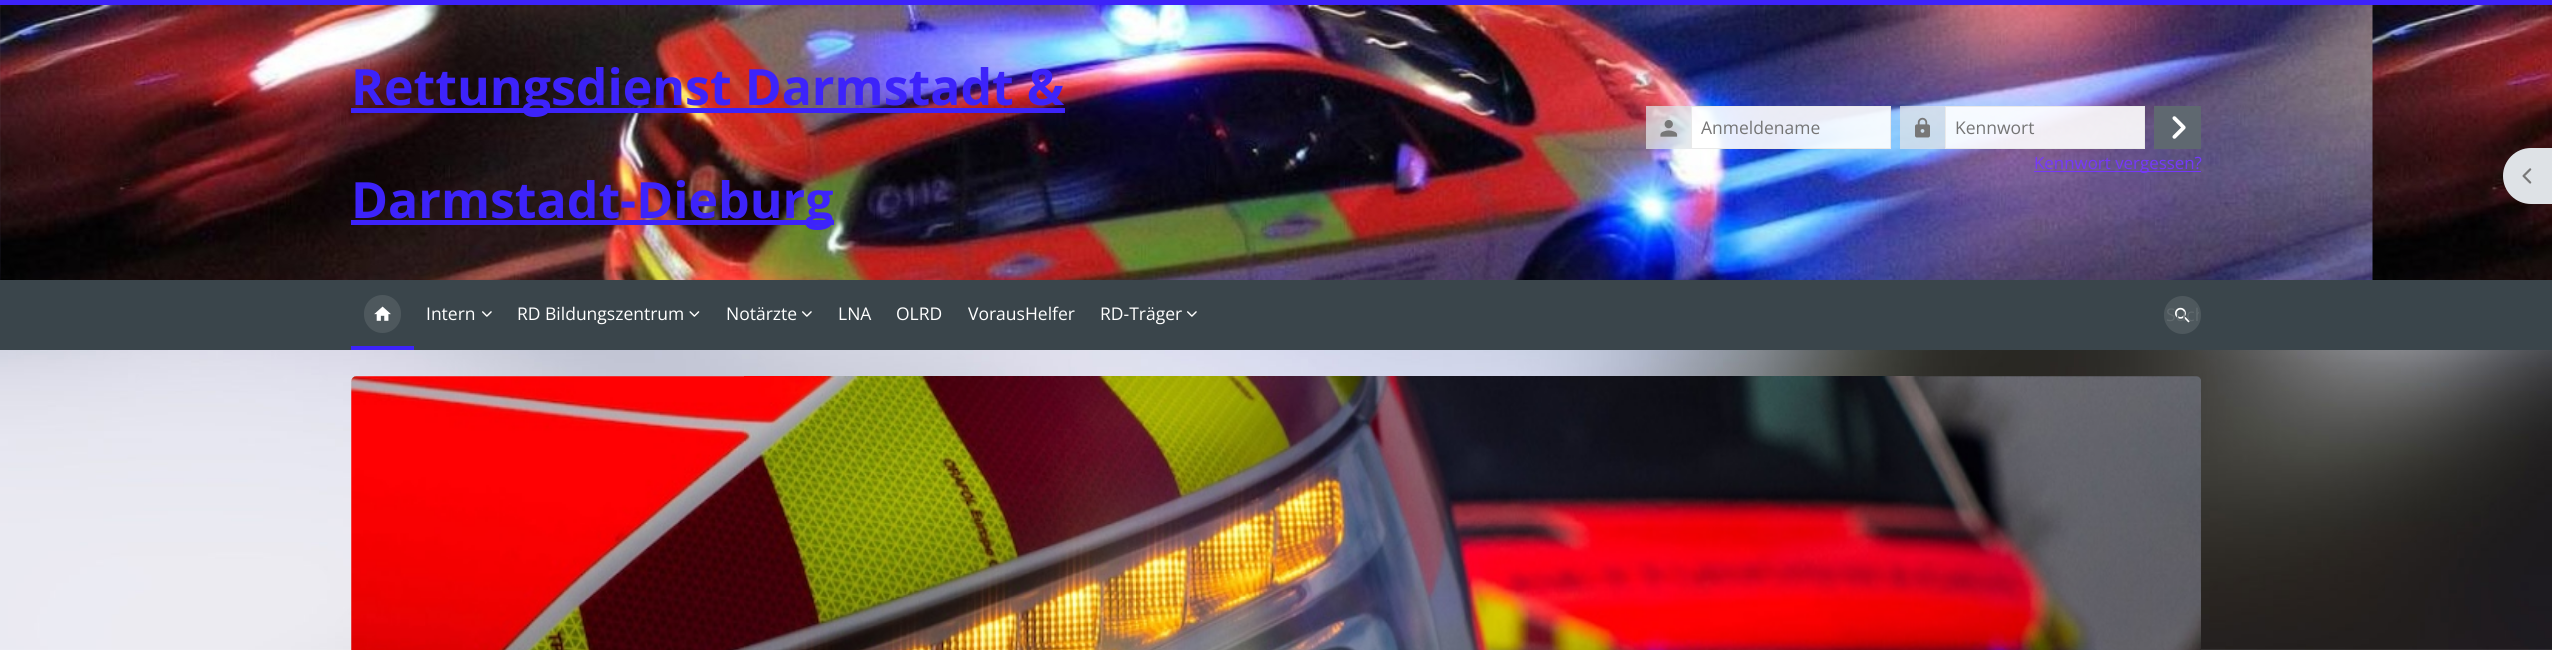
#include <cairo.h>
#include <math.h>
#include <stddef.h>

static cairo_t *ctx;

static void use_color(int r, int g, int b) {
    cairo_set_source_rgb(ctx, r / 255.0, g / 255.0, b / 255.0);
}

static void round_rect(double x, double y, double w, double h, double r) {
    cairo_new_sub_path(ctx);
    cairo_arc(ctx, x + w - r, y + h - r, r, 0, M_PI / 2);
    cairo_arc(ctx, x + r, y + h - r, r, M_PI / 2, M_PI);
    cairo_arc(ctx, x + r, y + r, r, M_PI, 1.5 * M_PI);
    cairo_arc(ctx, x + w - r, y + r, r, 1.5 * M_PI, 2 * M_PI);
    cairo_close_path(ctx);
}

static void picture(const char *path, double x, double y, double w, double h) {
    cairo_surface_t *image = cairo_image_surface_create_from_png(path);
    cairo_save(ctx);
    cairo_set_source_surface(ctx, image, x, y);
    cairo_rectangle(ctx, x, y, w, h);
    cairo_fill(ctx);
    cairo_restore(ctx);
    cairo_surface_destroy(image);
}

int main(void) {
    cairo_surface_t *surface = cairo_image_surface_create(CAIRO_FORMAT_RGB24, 2552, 650);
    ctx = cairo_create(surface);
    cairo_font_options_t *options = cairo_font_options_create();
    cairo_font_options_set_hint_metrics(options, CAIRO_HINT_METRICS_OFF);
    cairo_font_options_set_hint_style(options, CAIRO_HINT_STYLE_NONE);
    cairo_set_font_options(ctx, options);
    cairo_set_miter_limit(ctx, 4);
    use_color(255, 255, 255);
    cairo_paint(ctx);
    picture("img1.png", 0, 350, 2552, 300);
    use_color(61, 35, 250);
    cairo_rectangle(ctx, 0, 0, 2552, 5);
    cairo_fill(ctx);
    picture("img2.png", 0, 5, 2552, 275);
    cairo_rectangle(ctx, 351, 108, 714, 5);
    cairo_fill(ctx);
    cairo_select_font_face(ctx, "Open Sans", CAIRO_FONT_SLANT_NORMAL, CAIRO_FONT_WEIGHT_BOLD);
    cairo_set_font_size(ctx, 50);
    cairo_move_to(ctx, 351, 105);
    cairo_show_text(ctx, "Rettungsdienst Darmstadt &");
    cairo_rectangle(ctx, 351, 220, 483, 5);
    cairo_fill(ctx);
    cairo_move_to(ctx, 351, 218);
    cairo_show_text(ctx, "Darmstadt-Dieburg");
    cairo_set_source_rgba(ctx, 0.871, 0.886, 0.902, 0.75);
    cairo_rectangle(ctx, 1646, 106, 45, 43);
    cairo_fill(ctx);
    picture("img3.png", 1660, 120, 18, 17);
    cairo_set_source_rgba(ctx, 1, 1, 1, 0.9);
    cairo_rectangle(ctx, 1691.5, 106.5, 199, 42);
    cairo_fill_preserve(ctx);
    use_color(233, 233, 233);
    cairo_set_line_width(ctx, 1);
    cairo_stroke(ctx);
    cairo_select_font_face(ctx, "Open Sans", CAIRO_FONT_SLANT_NORMAL, CAIRO_FONT_WEIGHT_NORMAL);
    cairo_set_font_size(ctx, 17.5);
    use_color(117, 117, 117);
    cairo_move_to(ctx, 1701, 134);
    cairo_show_text(ctx, "Anmeldename");
    cairo_set_source_rgba(ctx, 0.871, 0.886, 0.902, 0.75);
    cairo_rectangle(ctx, 1900, 106, 45, 43);
    cairo_fill(ctx);
    picture("img4.png", 1915, 117, 15, 21);
    cairo_set_source_rgba(ctx, 1, 1, 1, 0.9);
    cairo_rectangle(ctx, 1945.5, 106.5, 199, 42);
    cairo_fill_preserve(ctx);
    use_color(233, 233, 233);
    cairo_stroke(ctx);
    use_color(117, 117, 117);
    cairo_move_to(ctx, 1955, 134);
    cairo_show_text(ctx, "Kennwort");
    use_color(95, 104, 112);
    cairo_rectangle(ctx, 2154, 106, 47, 43);
    cairo_fill(ctx);
    picture("img5.png", 2172, 116, 14, 23);
    use_color(118, 56, 251);
    cairo_rectangle(ctx, 2034, 171, 167, 1);
    cairo_fill(ctx);
    cairo_set_font_size(ctx, 16.9);
    cairo_move_to(ctx, 2034, 169);
    cairo_show_text(ctx, "Kennwort vergessen?");
    use_color(222, 226, 230);
    cairo_new_path(ctx);
    cairo_move_to(ctx, 2531, 148);
    cairo_line_to(ctx, 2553, 148);
    cairo_line_to(ctx, 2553, 204);
    cairo_line_to(ctx, 2531, 204);
    cairo_curve_to(ctx, 2515.5, 204, 2503, 191.5, 2503, 176);
    cairo_curve_to(ctx, 2503, 160.5, 2515.5, 148, 2531, 148);
    cairo_close_path(ctx);
    cairo_fill(ctx);
    picture("img6.png", 2522, 168, 10, 16);
    use_color(58, 69, 75);
    cairo_rectangle(ctx, 0, 280, 2552, 70);
    cairo_fill(ctx);
    use_color(61, 35, 250);
    cairo_rectangle(ctx, 351, 346, 63, 4);
    cairo_fill(ctx);
    use_color(78, 88, 93);
    round_rect(364, 295, 37, 38, 18.5);
    cairo_fill(ctx);
    picture("img7.png", 374, 306, 17, 15);
    cairo_set_font_size(ctx, 17.5);
    use_color(255, 255, 255);
    cairo_move_to(ctx, 426, 320);
    cairo_show_text(ctx, "Intern");
    picture("img8.png", 482, 311, 10, 6);
    cairo_move_to(ctx, 517, 320);
    cairo_show_text(ctx, "RD Bildungszentrum");
    picture("img9.png", 689, 311, 11, 6);
    cairo_move_to(ctx, 726, 320);
    cairo_show_text(ctx, "Notärzte");
    picture("img8.png", 802, 311, 10, 6);
    cairo_move_to(ctx, 838, 320);
    cairo_show_text(ctx, "LNA");
    cairo_move_to(ctx, 896, 320);
    cairo_show_text(ctx, "OLRD");
    cairo_move_to(ctx, 968, 320);
    cairo_show_text(ctx, "VorausHelfer");
    cairo_move_to(ctx, 1100, 320);
    cairo_show_text(ctx, "RD-Träger");
    picture("img8.png", 1187, 311, 10, 6);
    use_color(78, 88, 93);
    round_rect(2164, 296, 37, 38, 18.5);
    cairo_fill(ctx);
    picture("img10.png", 2175, 307, 15, 16);
    cairo_save(ctx);
    cairo_rectangle(ctx, 2166, 303, 33, 23);
    cairo_clip(ctx);
    use_color(96, 105, 109);
    cairo_move_to(ctx, 2166, 321);
    cairo_show_text(ctx, "Such");
    cairo_restore(ctx);
    picture("img11.png", 351, 376, 1850, 274);
    cairo_surface_write_to_png(surface, "result.png");
    cairo_font_options_destroy(options);
    cairo_destroy(ctx);
    cairo_surface_destroy(surface);
    return 0;
}
